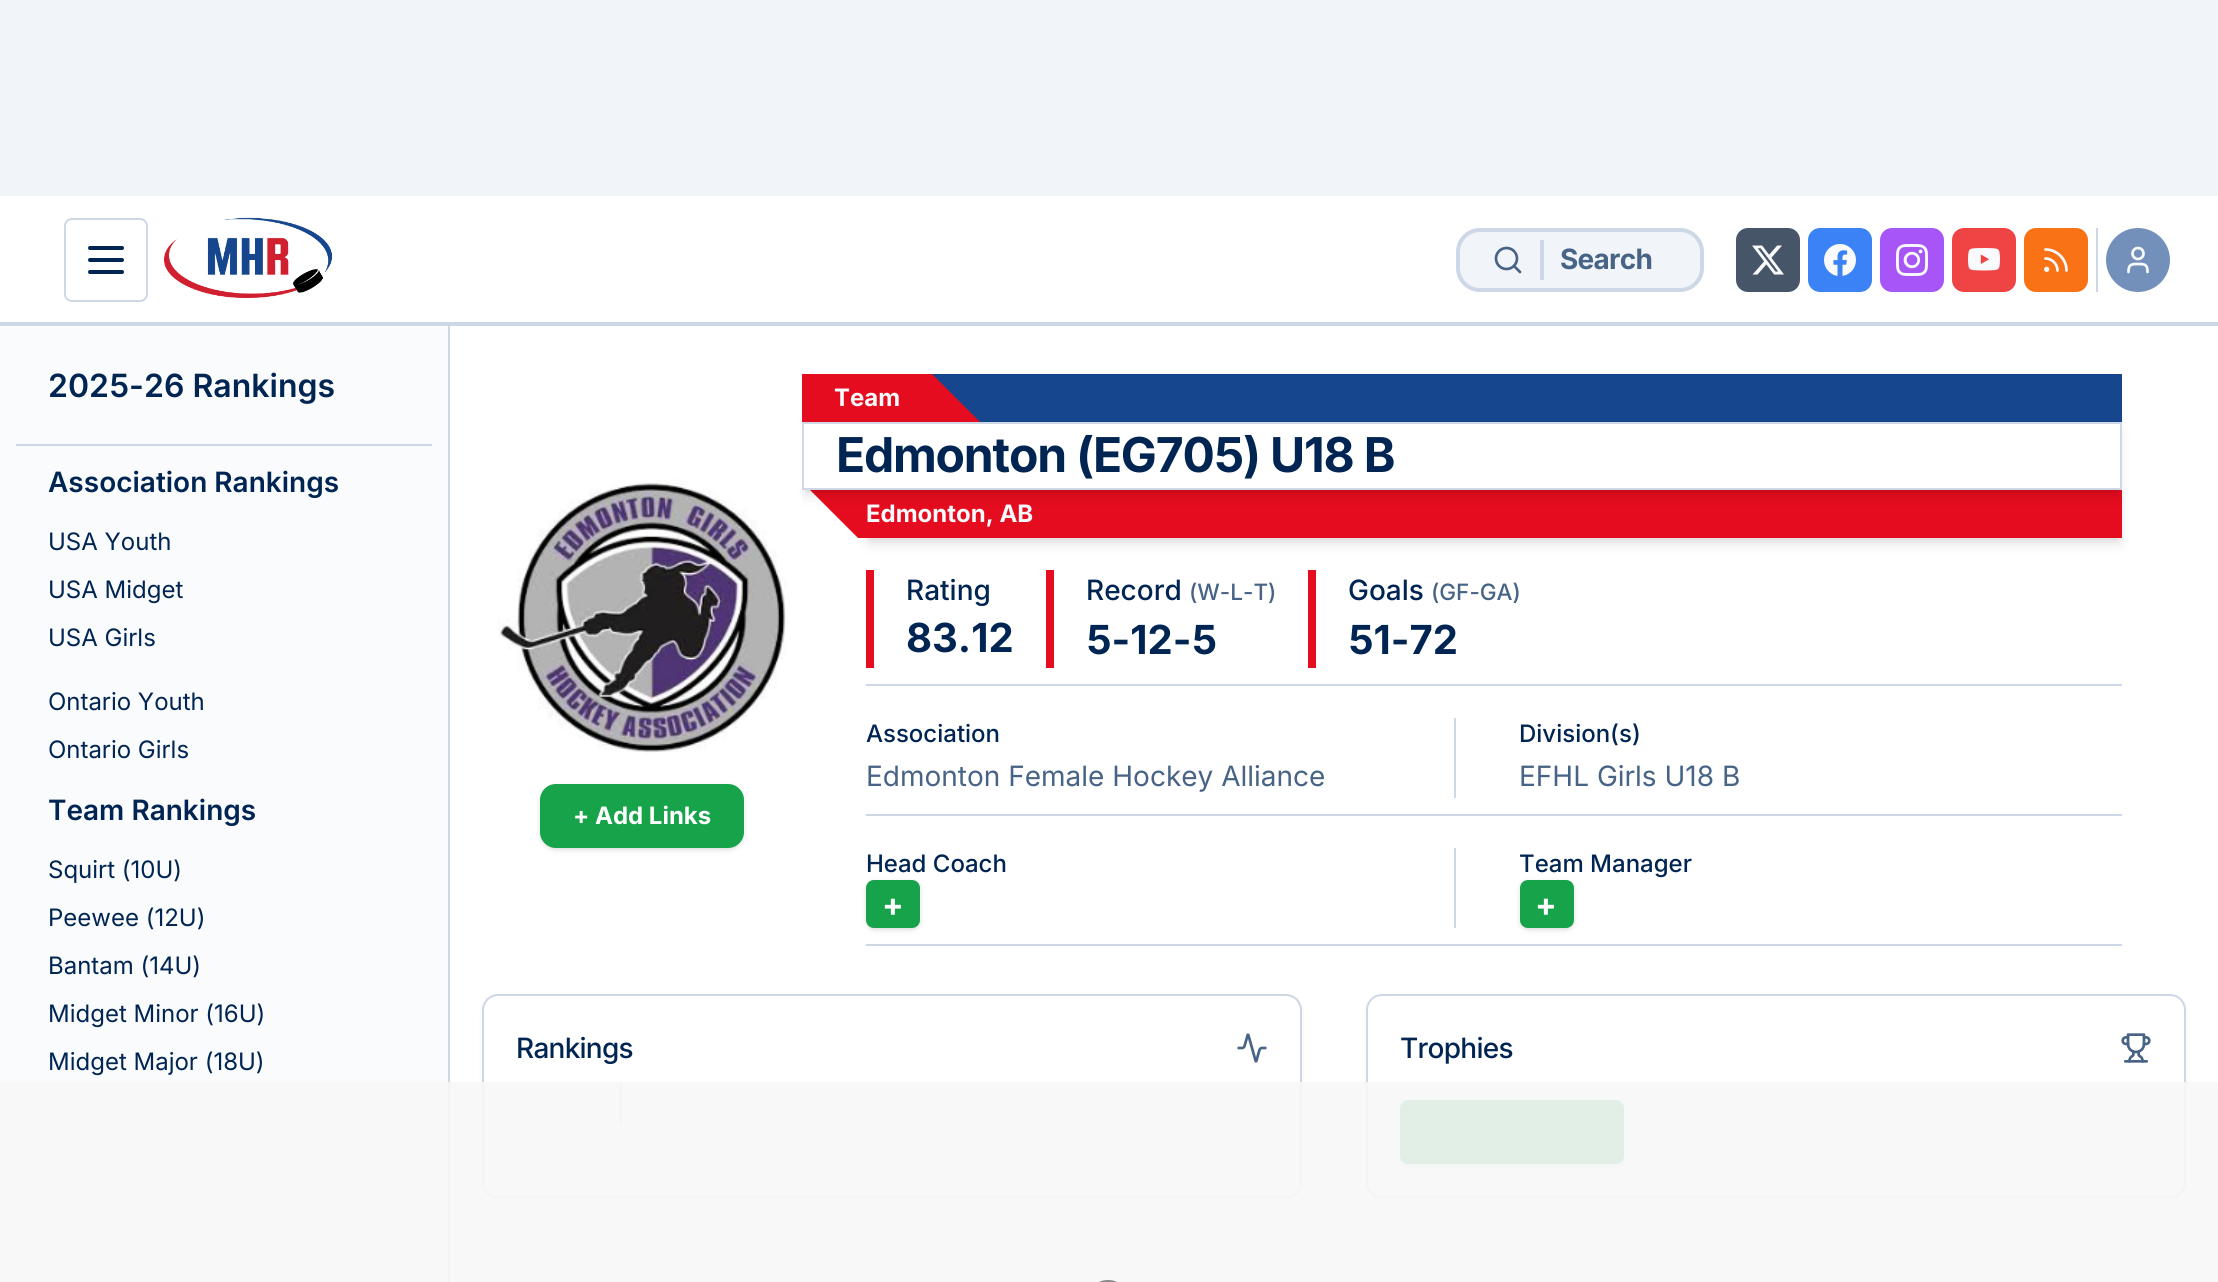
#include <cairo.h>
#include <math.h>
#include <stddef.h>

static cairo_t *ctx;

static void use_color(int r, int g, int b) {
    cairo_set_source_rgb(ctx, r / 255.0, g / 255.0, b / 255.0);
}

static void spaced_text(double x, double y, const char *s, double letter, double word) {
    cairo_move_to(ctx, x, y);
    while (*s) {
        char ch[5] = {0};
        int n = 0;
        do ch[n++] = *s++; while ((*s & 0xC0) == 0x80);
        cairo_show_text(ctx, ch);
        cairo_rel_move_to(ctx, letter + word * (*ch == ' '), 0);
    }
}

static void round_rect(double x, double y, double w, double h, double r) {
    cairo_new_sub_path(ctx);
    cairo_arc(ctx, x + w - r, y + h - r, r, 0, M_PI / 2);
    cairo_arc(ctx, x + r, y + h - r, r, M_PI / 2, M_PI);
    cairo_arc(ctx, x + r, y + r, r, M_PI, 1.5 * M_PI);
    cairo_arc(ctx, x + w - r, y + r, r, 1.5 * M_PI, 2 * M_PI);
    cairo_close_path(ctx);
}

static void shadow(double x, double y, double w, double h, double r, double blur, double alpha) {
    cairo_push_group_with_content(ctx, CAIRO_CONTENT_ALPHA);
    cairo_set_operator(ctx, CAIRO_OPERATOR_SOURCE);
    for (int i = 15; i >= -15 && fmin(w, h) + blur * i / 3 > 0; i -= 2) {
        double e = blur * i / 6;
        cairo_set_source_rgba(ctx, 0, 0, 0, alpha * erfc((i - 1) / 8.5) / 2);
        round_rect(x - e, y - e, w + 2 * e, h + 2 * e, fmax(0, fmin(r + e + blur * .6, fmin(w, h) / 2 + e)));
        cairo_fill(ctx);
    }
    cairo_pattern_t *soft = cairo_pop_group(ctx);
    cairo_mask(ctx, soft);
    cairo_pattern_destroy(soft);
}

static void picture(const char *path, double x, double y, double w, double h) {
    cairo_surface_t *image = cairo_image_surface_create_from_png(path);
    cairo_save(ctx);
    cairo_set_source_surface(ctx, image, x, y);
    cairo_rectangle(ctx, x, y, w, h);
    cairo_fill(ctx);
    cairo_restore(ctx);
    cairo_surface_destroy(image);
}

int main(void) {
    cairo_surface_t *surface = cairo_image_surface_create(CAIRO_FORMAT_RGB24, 2218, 1282);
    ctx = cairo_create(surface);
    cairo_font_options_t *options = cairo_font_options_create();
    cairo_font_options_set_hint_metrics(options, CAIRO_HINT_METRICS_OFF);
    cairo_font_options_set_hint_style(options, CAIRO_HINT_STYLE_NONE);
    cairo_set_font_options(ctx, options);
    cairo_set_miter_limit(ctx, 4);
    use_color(255, 255, 255);
    cairo_paint(ctx);
    use_color(241, 244, 249);
    cairo_rectangle(ctx, 0, 0, 2218, 196);
    cairo_fill(ctx);
    use_color(205, 215, 229);
    cairo_rectangle(ctx, 0, 322, 2218, 4);
    cairo_fill(ctx);
    round_rect(65, 219, 82, 82, 7);
    cairo_stroke(ctx);
    cairo_new_path(ctx);
    cairo_move_to(ctx, 90, 260);
    cairo_line_to(ctx, 122, 260);
    cairo_move_to(ctx, 90, 248);
    cairo_line_to(ctx, 122, 248);
    cairo_move_to(ctx, 90, 272);
    cairo_line_to(ctx, 122, 272);
    use_color(0, 37, 82);
    cairo_set_line_width(ctx, 4);
    cairo_set_line_cap(ctx, CAIRO_LINE_CAP_ROUND);
    cairo_set_line_join(ctx, CAIRO_LINE_JOIN_ROUND);
    cairo_stroke(ctx);
    picture("img1.png", 164, 217, 168, 81);
    use_color(241, 244, 249);
    round_rect(1458, 230, 244, 60, 22);
    cairo_fill_preserve(ctx);
    use_color(205, 215, 229);
    cairo_set_line_cap(ctx, CAIRO_LINE_CAP_BUTT);
    cairo_set_line_join(ctx, CAIRO_LINE_JOIN_MITER);
    cairo_stroke(ctx);
    cairo_new_path(ctx);
    cairo_move_to(ctx, 1520, 272);
    cairo_line_to(ctx, 1514, 266);
    use_color(71, 99, 133);
    cairo_set_line_width(ctx, 2.7);
    cairo_set_line_cap(ctx, CAIRO_LINE_CAP_ROUND);
    cairo_set_line_join(ctx, CAIRO_LINE_JOIN_ROUND);
    cairo_stroke(ctx);
    cairo_arc(ctx, 1506.5, 258.5, 10.5, 0, 2 * M_PI);
    cairo_set_line_cap(ctx, CAIRO_LINE_CAP_BUTT);
    cairo_set_line_join(ctx, CAIRO_LINE_JOIN_MITER);
    cairo_stroke(ctx);
    use_color(205, 215, 229);
    cairo_rectangle(ctx, 1540, 240, 4, 40);
    cairo_fill(ctx);
    cairo_select_font_face(ctx, "Inter", CAIRO_FONT_SLANT_NORMAL, CAIRO_FONT_WEIGHT_BOLD);
    cairo_set_font_size(ctx, 28);
    use_color(71, 99, 133);
    spaced_text(1560, 269, "Search", -0.75, 0);
    use_color(71, 85, 105);
    round_rect(1736, 228, 64, 64, 12);
    cairo_fill(ctx);
    picture("img2.png", 1752, 245, 32, 30);
    use_color(59, 130, 246);
    round_rect(1808, 228, 64, 64, 12);
    cairo_fill(ctx);
    picture("img3.png", 1824, 244, 32, 32);
    use_color(168, 85, 247);
    round_rect(1880, 228, 64, 64, 12);
    cairo_fill(ctx);
    picture("img4.png", 1896, 244, 32, 32);
    use_color(239, 68, 68);
    round_rect(1952, 228, 64, 64, 12);
    cairo_fill(ctx);
    picture("img5.png", 1968, 248, 32, 23);
    use_color(249, 115, 22);
    round_rect(2024, 228, 64, 64, 12);
    cairo_fill(ctx);
    cairo_new_path(ctx);
    cairo_move_to(ctx, 2045.5, 258.5);
    cairo_curve_to(ctx, 2052, 258.5, 2057.5, 264, 2057.5, 270.5);
    cairo_move_to(ctx, 2045.5, 249.5);
    cairo_curve_to(ctx, 2057, 249.5, 2066.5, 259, 2066.5, 270.5);
    use_color(248, 250, 252);
    cairo_set_line_cap(ctx, CAIRO_LINE_CAP_ROUND);
    cairo_set_line_join(ctx, CAIRO_LINE_JOIN_ROUND);
    cairo_stroke(ctx);
    cairo_arc(ctx, 2046.7, 269.3, 1.3, 0, 2 * M_PI);
    cairo_set_line_cap(ctx, CAIRO_LINE_CAP_BUTT);
    cairo_set_line_join(ctx, CAIRO_LINE_JOIN_MITER);
    cairo_stroke(ctx);
    use_color(205, 215, 229);
    cairo_rectangle(ctx, 2096, 228, 2, 64);
    cairo_fill(ctx);
    use_color(115, 144, 187);
    cairo_arc(ctx, 2138, 260, 32, 0, 2 * M_PI);
    cairo_fill(ctx);
    cairo_new_path(ctx);
    cairo_move_to(ctx, 2147.5, 272);
    cairo_curve_to(ctx, 2147.5, 264.5, 2145, 264, 2138, 264);
    cairo_curve_to(ctx, 2131, 264, 2128.5, 264.5, 2128.5, 272);
    use_color(248, 250, 252);
    cairo_set_line_cap(ctx, CAIRO_LINE_CAP_ROUND);
    cairo_set_line_join(ctx, CAIRO_LINE_JOIN_ROUND);
    cairo_stroke(ctx);
    cairo_arc(ctx, 2138, 253.5, 5.5, 0, 2 * M_PI);
    cairo_set_line_cap(ctx, CAIRO_LINE_CAP_BUTT);
    cairo_set_line_join(ctx, CAIRO_LINE_JOIN_MITER);
    cairo_stroke(ctx);
    use_color(250, 251, 253);
    cairo_rectangle(ctx, 0, 326, 448, 956);
    cairo_fill(ctx);
    use_color(205, 215, 229);
    cairo_rectangle(ctx, 448, 326, 2, 956);
    cairo_fill(ctx);
    cairo_rectangle(ctx, 16, 444, 416, 2);
    cairo_fill(ctx);
    cairo_select_font_face(ctx, "Inter SemiBold", CAIRO_FONT_SLANT_NORMAL, CAIRO_FONT_WEIGHT_NORMAL);
    cairo_set_font_size(ctx, 32);
    use_color(0, 37, 82);
    cairo_move_to(ctx, 48, 397);
    cairo_show_text(ctx, "2025-26 Rankings");
    cairo_set_font_size(ctx, 28);
    cairo_move_to(ctx, 48, 492);
    cairo_show_text(ctx, "Association Rankings");
    cairo_select_font_face(ctx, "Inter", CAIRO_FONT_SLANT_NORMAL, CAIRO_FONT_WEIGHT_NORMAL);
    cairo_set_font_size(ctx, 24);
    cairo_move_to(ctx, 48, 550);
    cairo_show_text(ctx, "USA Youth");
    cairo_move_to(ctx, 48, 598);
    cairo_show_text(ctx, "USA Midget");
    cairo_move_to(ctx, 48, 646);
    cairo_show_text(ctx, "USA Girls");
    cairo_move_to(ctx, 48, 710);
    cairo_show_text(ctx, "Ontario Youth");
    cairo_move_to(ctx, 48, 758);
    cairo_show_text(ctx, "Ontario Girls");
    cairo_select_font_face(ctx, "Inter SemiBold", CAIRO_FONT_SLANT_NORMAL, CAIRO_FONT_WEIGHT_NORMAL);
    cairo_set_font_size(ctx, 28);
    cairo_move_to(ctx, 48, 820);
    cairo_show_text(ctx, "Team Rankings");
    cairo_select_font_face(ctx, "Inter", CAIRO_FONT_SLANT_NORMAL, CAIRO_FONT_WEIGHT_NORMAL);
    cairo_set_font_size(ctx, 24);
    cairo_move_to(ctx, 48, 878);
    cairo_show_text(ctx, "Squirt (10U)");
    cairo_move_to(ctx, 48, 926);
    cairo_show_text(ctx, "Peewee (12U)");
    cairo_move_to(ctx, 48, 974);
    cairo_show_text(ctx, "Bantam (14U)");
    cairo_move_to(ctx, 48, 1022);
    cairo_show_text(ctx, "Midget Minor (16U)");
    cairo_move_to(ctx, 48, 1070);
    cairo_show_text(ctx, "Midget Major (18U)");
    picture("img6.png", 498, 479, 288, 274);
    use_color(0, 0, 0);
    shadow(542, 788, 200, 60, 14, 2, 0.1);
    shadow(540, 786, 204, 64, 16, 3, 0.1);
    use_color(22, 163, 74);
    round_rect(540, 784, 204, 64, 16);
    cairo_fill(ctx);
    cairo_select_font_face(ctx, "Inter", CAIRO_FONT_SLANT_NORMAL, CAIRO_FONT_WEIGHT_BOLD);
    use_color(255, 255, 255);
    cairo_move_to(ctx, 573, 824);
    cairo_show_text(ctx, "+ Add Links");
    use_color(22, 70, 141);
    cairo_rectangle(ctx, 932, 374, 1190, 48);
    cairo_fill(ctx);
    use_color(228, 12, 30);
    cairo_rectangle(ctx, 802, 374, 130, 48);
    cairo_fill(ctx);
    use_color(248, 250, 252);
    cairo_move_to(ctx, 834, 406);
    cairo_show_text(ctx, "Team");
    use_color(228, 12, 30);
    cairo_new_path(ctx);
    cairo_move_to(ctx, 884, 374);
    cairo_line_to(ctx, 932, 374);
    cairo_line_to(ctx, 980, 422);
    cairo_line_to(ctx, 932, 422);
    cairo_close_path(ctx);
    cairo_fill(ctx);
    use_color(0, 0, 0);
    shadow(870, 498, 1248, 40, 0, 4, 0.1);
    shadow(868, 500, 1252, 44, 0, 6, 0.1);
    use_color(228, 12, 30);
    cairo_rectangle(ctx, 874, 490, 1248, 48);
    cairo_fill(ctx);
    cairo_new_path(ctx);
    cairo_move_to(ctx, 810, 490);
    cairo_line_to(ctx, 874, 490);
    cairo_line_to(ctx, 922, 538);
    cairo_line_to(ctx, 858, 538);
    cairo_close_path(ctx);
    cairo_fill(ctx);
    cairo_save(ctx);
    cairo_rectangle(ctx, 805, 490, 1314, 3);
    cairo_clip(ctx);
    use_color(0, 0, 0);
    shadow(806, 430, 1312, 60, 0, 4, 0.1);
    cairo_restore(ctx);
    cairo_save(ctx);
    cairo_rectangle(ctx, 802, 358, 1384, 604);
    cairo_clip(ctx);
    cairo_set_fill_rule(ctx, CAIRO_FILL_RULE_EVEN_ODD);
    cairo_new_path(ctx);
    cairo_move_to(ctx, 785, 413);
    cairo_line_to(ctx, 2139, 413);
    cairo_line_to(ctx, 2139, 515);
    cairo_line_to(ctx, 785, 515);
    cairo_close_path(ctx);
    cairo_move_to(ctx, 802, 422);
    cairo_line_to(ctx, 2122, 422);
    cairo_line_to(ctx, 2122, 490);
    cairo_line_to(ctx, 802, 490);
    cairo_close_path(ctx);
    cairo_clip(ctx);
    use_color(0, 0, 0);
    shadow(804, 432, 1316, 64, 0, 6, 0.1);
    cairo_restore(ctx);
    cairo_rectangle(ctx, 803, 423, 1318, 66);
    use_color(205, 215, 229);
    cairo_set_line_width(ctx, 2);
    cairo_stroke(ctx);
    cairo_set_font_size(ctx, 48);
    use_color(0, 37, 82);
    spaced_text(836, 472, "Edmonton (EG705) U18 B", -1.2, 0);
    cairo_set_font_size(ctx, 24);
    use_color(248, 250, 252);
    cairo_move_to(ctx, 866, 522);
    cairo_show_text(ctx, "Edmonton, AB");
    use_color(228, 12, 30);
    cairo_rectangle(ctx, 866, 570, 8, 98);
    cairo_fill(ctx);
    cairo_select_font_face(ctx, "Inter Medium", CAIRO_FONT_SLANT_NORMAL, CAIRO_FONT_WEIGHT_NORMAL);
    cairo_set_font_size(ctx, 28);
    use_color(0, 37, 82);
    cairo_move_to(ctx, 906, 600);
    cairo_show_text(ctx, "Rating");
    cairo_select_font_face(ctx, "Inter", CAIRO_FONT_SLANT_NORMAL, CAIRO_FONT_WEIGHT_BOLD);
    cairo_set_font_size(ctx, 40);
    cairo_move_to(ctx, 906, 652);
    cairo_show_text(ctx, "83.12");
    use_color(228, 12, 30);
    cairo_rectangle(ctx, 1046, 570, 8, 98);
    cairo_fill(ctx);
    cairo_select_font_face(ctx, "Inter Medium", CAIRO_FONT_SLANT_NORMAL, CAIRO_FONT_WEIGHT_NORMAL);
    cairo_set_font_size(ctx, 28);
    use_color(0, 37, 82);
    cairo_move_to(ctx, 1086, 600);
    cairo_show_text(ctx, "Record");
    cairo_set_font_size(ctx, 22.5);
    use_color(71, 99, 133);
    cairo_move_to(ctx, 1189, 600);
    cairo_show_text(ctx, "(W-L-T)");
    cairo_select_font_face(ctx, "Inter", CAIRO_FONT_SLANT_NORMAL, CAIRO_FONT_WEIGHT_BOLD);
    cairo_set_font_size(ctx, 40);
    use_color(0, 37, 82);
    cairo_move_to(ctx, 1086, 654);
    cairo_show_text(ctx, "5-12-5");
    use_color(228, 12, 30);
    cairo_rectangle(ctx, 1308, 570, 8, 98);
    cairo_fill(ctx);
    cairo_select_font_face(ctx, "Inter Medium", CAIRO_FONT_SLANT_NORMAL, CAIRO_FONT_WEIGHT_NORMAL);
    cairo_set_font_size(ctx, 28);
    use_color(0, 37, 82);
    cairo_move_to(ctx, 1348, 600);
    cairo_show_text(ctx, "Goals");
    cairo_set_font_size(ctx, 22.5);
    use_color(71, 99, 133);
    cairo_move_to(ctx, 1431, 600);
    cairo_show_text(ctx, "(GF-GA)");
    cairo_select_font_face(ctx, "Inter", CAIRO_FONT_SLANT_NORMAL, CAIRO_FONT_WEIGHT_BOLD);
    cairo_set_font_size(ctx, 40);
    use_color(0, 37, 82);
    cairo_move_to(ctx, 1348, 654);
    cairo_show_text(ctx, "51-72");
    use_color(205, 215, 229);
    cairo_rectangle(ctx, 866, 684, 1256, 2);
    cairo_fill(ctx);
    cairo_select_font_face(ctx, "Inter Medium", CAIRO_FONT_SLANT_NORMAL, CAIRO_FONT_WEIGHT_NORMAL);
    cairo_set_font_size(ctx, 24);
    use_color(0, 37, 82);
    cairo_move_to(ctx, 866, 742);
    cairo_show_text(ctx, "Association");
    cairo_select_font_face(ctx, "Inter", CAIRO_FONT_SLANT_NORMAL, CAIRO_FONT_WEIGHT_NORMAL);
    cairo_set_font_size(ctx, 28);
    use_color(71, 99, 133);
    cairo_move_to(ctx, 866, 786);
    cairo_show_text(ctx, "Edmonton Female Hockey Alliance");
    use_color(205, 215, 229);
    cairo_rectangle(ctx, 1454, 718, 2, 80);
    cairo_fill(ctx);
    cairo_select_font_face(ctx, "Inter Medium", CAIRO_FONT_SLANT_NORMAL, CAIRO_FONT_WEIGHT_NORMAL);
    cairo_set_font_size(ctx, 24);
    use_color(0, 37, 82);
    cairo_move_to(ctx, 1519, 742);
    cairo_show_text(ctx, "Division(s)");
    cairo_select_font_face(ctx, "Inter", CAIRO_FONT_SLANT_NORMAL, CAIRO_FONT_WEIGHT_NORMAL);
    cairo_set_font_size(ctx, 28);
    use_color(71, 99, 133);
    cairo_move_to(ctx, 1519, 786);
    cairo_show_text(ctx, "EFHL Girls U18 B");
    use_color(205, 215, 229);
    cairo_rectangle(ctx, 866, 814, 1256, 2);
    cairo_fill(ctx);
    cairo_select_font_face(ctx, "Inter Medium", CAIRO_FONT_SLANT_NORMAL, CAIRO_FONT_WEIGHT_NORMAL);
    cairo_set_font_size(ctx, 24);
    use_color(0, 37, 82);
    cairo_move_to(ctx, 866, 872);
    cairo_show_text(ctx, "Head Coach");
    use_color(0, 0, 0);
    shadow(868, 884, 50, 44, 6, 2, 0.1);
    shadow(866, 882, 54, 48, 8, 3, 0.1);
    use_color(22, 163, 74);
    round_rect(866, 880, 54, 48, 8);
    cairo_fill(ctx);
    cairo_select_font_face(ctx, "Inter", CAIRO_FONT_SLANT_NORMAL, CAIRO_FONT_WEIGHT_BOLD);
    cairo_set_font_size(ctx, 32);
    use_color(255, 255, 255);
    cairo_move_to(ctx, 882, 916);
    cairo_show_text(ctx, "+");
    use_color(205, 215, 229);
    cairo_rectangle(ctx, 1454, 848, 2, 80);
    cairo_fill(ctx);
    cairo_select_font_face(ctx, "Inter Medium", CAIRO_FONT_SLANT_NORMAL, CAIRO_FONT_WEIGHT_NORMAL);
    cairo_set_font_size(ctx, 24);
    use_color(0, 37, 82);
    cairo_move_to(ctx, 1519, 872);
    cairo_show_text(ctx, "Team Manager");
    use_color(0, 0, 0);
    shadow(1522, 884, 50, 44, 6, 2, 0.1);
    shadow(1520, 882, 54, 48, 8, 3, 0.1);
    use_color(22, 163, 74);
    round_rect(1520, 880, 54, 48, 8);
    cairo_fill(ctx);
    cairo_select_font_face(ctx, "Inter", CAIRO_FONT_SLANT_NORMAL, CAIRO_FONT_WEIGHT_BOLD);
    cairo_set_font_size(ctx, 32);
    use_color(255, 255, 255);
    cairo_move_to(ctx, 1535, 916);
    cairo_show_text(ctx, "+");
    use_color(205, 215, 229);
    cairo_rectangle(ctx, 866, 944, 1256, 2);
    cairo_fill(ctx);
    use_color(0, 0, 0);
    shadow(482, 996, 820, 204, 16, 2, 0.05);
    use_color(255, 255, 255);
    round_rect(483, 995, 818, 202, 15);
    cairo_fill_preserve(ctx);
    use_color(205, 215, 229);
    cairo_stroke(ctx);
    cairo_select_font_face(ctx, "Inter Medium", CAIRO_FONT_SLANT_NORMAL, CAIRO_FONT_WEIGHT_NORMAL);
    cairo_set_font_size(ctx, 28);
    use_color(0, 37, 82);
    spaced_text(516, 1058, "Rankings", -0.75, 0);
    picture("img7.png", 1237, 1033, 30, 30);
    use_color(205, 215, 229);
    cairo_rectangle(ctx, 620, 1084, 2, 40);
    cairo_fill(ctx);
    use_color(0, 0, 0);
    shadow(1366, 996, 820, 204, 16, 2, 0.05);
    use_color(255, 255, 255);
    round_rect(1367, 995, 818, 202, 15);
    cairo_fill_preserve(ctx);
    use_color(205, 215, 229);
    cairo_stroke(ctx);
    use_color(0, 37, 82);
    spaced_text(1400, 1058, "Trophies", -0.75, 0);
    picture("img8.png", 2121, 1033, 30, 30);
    use_color(0, 0, 0);
    shadow(1402, 1104, 220, 60, 6, 2, 0.1);
    shadow(1400, 1102, 224, 64, 8, 3, 0.1);
    use_color(22, 163, 74);
    round_rect(1400, 1100, 224, 64, 8);
    cairo_fill(ctx);
    cairo_set_source_rgba(ctx, 0.969, 0.969, 0.969, 0.9);
    cairo_rectangle(ctx, 0, 1082, 2218, 200);
    cairo_fill(ctx);
    round_rect(1087, 1281, 42, 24, 21);
    use_color(136, 136, 136);
    cairo_stroke(ctx);
    cairo_surface_write_to_png(surface, "result.png");
    cairo_font_options_destroy(options);
    cairo_destroy(ctx);
    cairo_surface_destroy(surface);
    return 0;
}
